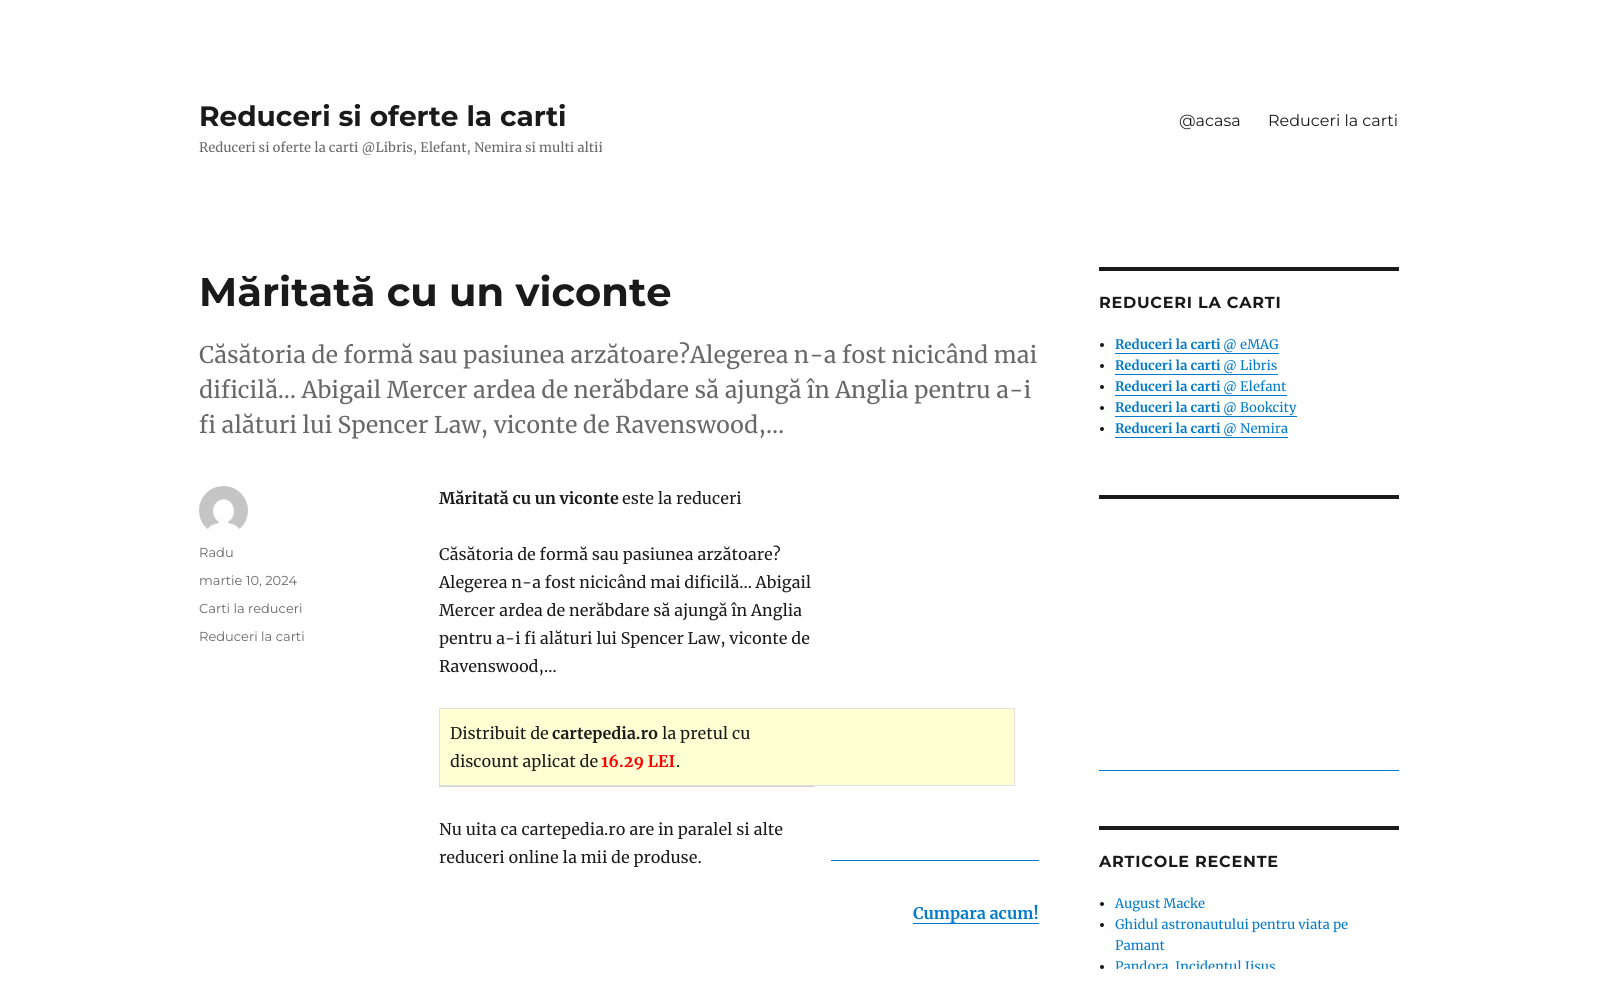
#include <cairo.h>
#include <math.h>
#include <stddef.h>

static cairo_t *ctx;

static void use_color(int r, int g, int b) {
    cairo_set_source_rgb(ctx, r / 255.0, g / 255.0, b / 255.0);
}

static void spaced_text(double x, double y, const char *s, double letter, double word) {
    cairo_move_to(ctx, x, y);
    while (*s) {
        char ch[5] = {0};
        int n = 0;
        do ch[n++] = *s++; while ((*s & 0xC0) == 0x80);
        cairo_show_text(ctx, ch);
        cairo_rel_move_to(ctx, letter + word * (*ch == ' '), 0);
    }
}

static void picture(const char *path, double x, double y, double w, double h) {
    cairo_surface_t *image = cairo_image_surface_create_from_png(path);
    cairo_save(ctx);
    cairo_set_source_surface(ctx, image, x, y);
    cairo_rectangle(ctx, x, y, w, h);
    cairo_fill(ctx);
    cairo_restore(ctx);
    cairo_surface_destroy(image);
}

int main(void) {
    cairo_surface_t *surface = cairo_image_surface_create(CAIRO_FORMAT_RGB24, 1597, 990);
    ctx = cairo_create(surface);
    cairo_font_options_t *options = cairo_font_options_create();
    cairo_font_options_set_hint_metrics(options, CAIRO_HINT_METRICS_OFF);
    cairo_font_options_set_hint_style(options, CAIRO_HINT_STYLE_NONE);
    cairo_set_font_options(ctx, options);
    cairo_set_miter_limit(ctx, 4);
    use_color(255, 255, 255);
    cairo_paint(ctx);
    cairo_select_font_face(ctx, "Montserrat Thin", CAIRO_FONT_SLANT_NORMAL, CAIRO_FONT_WEIGHT_NORMAL);
    cairo_set_font_size(ctx, 28);
    use_color(26, 26, 26);
    cairo_move_to(ctx, 199, 126);
    cairo_show_text(ctx, "Reduceri si oferte la carti");
    cairo_save(ctx);
    cairo_rectangle(ctx, 199, 99, 403, 56);
    cairo_clip(ctx);
    cairo_select_font_face(ctx, "Merriweather", CAIRO_FONT_SLANT_NORMAL, CAIRO_FONT_WEIGHT_NORMAL);
    cairo_set_font_size(ctx, 13);
    use_color(104, 104, 104);
    cairo_move_to(ctx, 199, 152);
    cairo_show_text(ctx, "Reduceri si oferte la carti @Libris, Elefant, Nemira si multi altii");
    cairo_restore(ctx);
    cairo_select_font_face(ctx, "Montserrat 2 Thin", CAIRO_FONT_SLANT_NORMAL, CAIRO_FONT_WEIGHT_NORMAL);
    cairo_set_font_size(ctx, 16);
    cairo_move_to(ctx, 1179, 126);
    cairo_show_text(ctx, "@acasa");
    cairo_move_to(ctx, 1268, 126);
    cairo_show_text(ctx, "Reduceri la carti");
    cairo_select_font_face(ctx, "Montserrat Thin", CAIRO_FONT_SLANT_NORMAL, CAIRO_FONT_WEIGHT_NORMAL);
    cairo_set_font_size(ctx, 40);
    cairo_move_to(ctx, 199, 306);
    cairo_show_text(ctx, "Măritată cu un viconte");
    cairo_select_font_face(ctx, "Merriweather", CAIRO_FONT_SLANT_NORMAL, CAIRO_FONT_WEIGHT_NORMAL);
    cairo_set_font_size(ctx, 23);
    use_color(104, 104, 104);
    cairo_move_to(ctx, 199, 363);
    cairo_show_text(ctx, "Căsătoria de formă sau pasiunea arzătoare?Alegerea n-a fost nicicând mai");
    cairo_move_to(ctx, 199, 398);
    cairo_show_text(ctx, "dificilă… Abigail Mercer ardea de nerăbdare să ajungă în Anglia pentru a-i");
    cairo_move_to(ctx, 199, 433);
    cairo_show_text(ctx, "fi alături lui Spencer Law, viconte de Ravenswood,…");
    picture("img1.png", 199, 486, 49, 45);
    cairo_select_font_face(ctx, "Montserrat 2 Thin", CAIRO_FONT_SLANT_NORMAL, CAIRO_FONT_WEIGHT_NORMAL);
    cairo_set_font_size(ctx, 13);
    cairo_move_to(ctx, 199, 557);
    cairo_show_text(ctx, "Radu");
    cairo_move_to(ctx, 199, 585);
    cairo_show_text(ctx, "martie 10, 2024");
    cairo_move_to(ctx, 199, 613);
    cairo_show_text(ctx, "Carti la reduceri");
    cairo_move_to(ctx, 199, 641);
    cairo_show_text(ctx, "Reduceri la carti");
    cairo_select_font_face(ctx, "Merriweather", CAIRO_FONT_SLANT_NORMAL, CAIRO_FONT_WEIGHT_BOLD);
    cairo_set_font_size(ctx, 16);
    use_color(26, 26, 26);
    cairo_move_to(ctx, 439, 504);
    cairo_show_text(ctx, "Măritată cu un viconte");
    cairo_select_font_face(ctx, "Merriweather", CAIRO_FONT_SLANT_NORMAL, CAIRO_FONT_WEIGHT_NORMAL);
    cairo_move_to(ctx, 622, 504);
    cairo_show_text(ctx, "este la reduceri");
    cairo_move_to(ctx, 439, 560);
    cairo_show_text(ctx, "Căsătoria de formă sau pasiunea arzătoare?");
    cairo_move_to(ctx, 439, 588);
    cairo_show_text(ctx, "Alegerea n-a fost nicicând mai dificilă… Abigail");
    cairo_move_to(ctx, 439, 616);
    cairo_show_text(ctx, "Mercer ardea de nerăbdare să ajungă în Anglia");
    cairo_move_to(ctx, 439, 644);
    cairo_show_text(ctx, "pentru a-i fi alături lui Spencer Law, viconte de");
    cairo_move_to(ctx, 439, 672);
    cairo_show_text(ctx, "Ravenswood,…");
    use_color(255, 255, 212);
    cairo_rectangle(ctx, 439.5, 708.5, 575, 77);
    cairo_fill_preserve(ctx);
    use_color(225, 225, 225);
    cairo_set_line_width(ctx, 1);
    cairo_stroke(ctx);
    use_color(26, 26, 26);
    cairo_move_to(ctx, 450, 739);
    cairo_show_text(ctx, "Distribuit de");
    cairo_select_font_face(ctx, "Merriweather", CAIRO_FONT_SLANT_NORMAL, CAIRO_FONT_WEIGHT_BOLD);
    cairo_move_to(ctx, 552, 739);
    cairo_show_text(ctx, "cartepedia.ro");
    cairo_select_font_face(ctx, "Merriweather", CAIRO_FONT_SLANT_NORMAL, CAIRO_FONT_WEIGHT_NORMAL);
    cairo_move_to(ctx, 662, 739);
    cairo_show_text(ctx, "la pretul cu");
    cairo_move_to(ctx, 450, 767);
    cairo_show_text(ctx, "discount aplicat de");
    cairo_select_font_face(ctx, "Merriweather", CAIRO_FONT_SLANT_NORMAL, CAIRO_FONT_WEIGHT_BOLD);
    use_color(255, 0, 0);
    cairo_move_to(ctx, 601, 767);
    cairo_show_text(ctx, "16.29 LEI");
    cairo_select_font_face(ctx, "Merriweather", CAIRO_FONT_SLANT_NORMAL, CAIRO_FONT_WEIGHT_NORMAL);
    use_color(26, 26, 26);
    cairo_move_to(ctx, 676, 767);
    cairo_show_text(ctx, ".");
    use_color(209, 209, 209);
    cairo_rectangle(ctx, 439, 786, 376, 1);
    cairo_fill(ctx);
    use_color(26, 26, 26);
    cairo_move_to(ctx, 439, 835);
    cairo_show_text(ctx, "Nu uita ca cartepedia.ro are in paralel si alte");
    cairo_move_to(ctx, 439, 863);
    cairo_show_text(ctx, "reduceri online la mii de produse.");
    use_color(0, 122, 204);
    cairo_rectangle(ctx, 831, 860, 208, 1);
    cairo_fill(ctx);
    cairo_select_font_face(ctx, "Merriweather", CAIRO_FONT_SLANT_NORMAL, CAIRO_FONT_WEIGHT_BOLD);
    cairo_move_to(ctx, 913, 919);
    cairo_show_text(ctx, "Cumpara acum!");
    cairo_rectangle(ctx, 913, 923, 126, 1);
    cairo_fill(ctx);
    use_color(26, 26, 26);
    cairo_rectangle(ctx, 1099, 267, 300, 4);
    cairo_fill(ctx);
    cairo_select_font_face(ctx, "Montserrat Thin", CAIRO_FONT_SLANT_NORMAL, CAIRO_FONT_WEIGHT_NORMAL);
    spaced_text(1099, 308, "REDUCERI LA CARTI", 0.75, 0);
    cairo_new_path(ctx);
    cairo_arc(ctx, 1102, 345, 2, 0, 2 * M_PI);
    cairo_fill(ctx);
    cairo_select_font_face(ctx, "Merriweather", CAIRO_FONT_SLANT_NORMAL, CAIRO_FONT_WEIGHT_BOLD);
    cairo_set_font_size(ctx, 13);
    use_color(0, 122, 204);
    cairo_move_to(ctx, 1115, 349);
    cairo_show_text(ctx, "Reduceri la carti");
    cairo_select_font_face(ctx, "Merriweather", CAIRO_FONT_SLANT_NORMAL, CAIRO_FONT_WEIGHT_NORMAL);
    cairo_move_to(ctx, 1223, 349);
    cairo_show_text(ctx, "@ eMAG");
    cairo_rectangle(ctx, 1115, 353, 164, 1);
    cairo_fill(ctx);
    use_color(26, 26, 26);
    cairo_arc(ctx, 1102, 366, 2, 0, 2 * M_PI);
    cairo_fill(ctx);
    cairo_select_font_face(ctx, "Merriweather", CAIRO_FONT_SLANT_NORMAL, CAIRO_FONT_WEIGHT_BOLD);
    use_color(0, 122, 204);
    cairo_move_to(ctx, 1115, 370);
    cairo_show_text(ctx, "Reduceri la carti");
    cairo_select_font_face(ctx, "Merriweather", CAIRO_FONT_SLANT_NORMAL, CAIRO_FONT_WEIGHT_NORMAL);
    cairo_move_to(ctx, 1223, 370);
    cairo_show_text(ctx, "@ Libris");
    cairo_rectangle(ctx, 1115, 374, 163, 1);
    cairo_fill(ctx);
    use_color(26, 26, 26);
    cairo_arc(ctx, 1102, 387, 2, 0, 2 * M_PI);
    cairo_fill(ctx);
    cairo_select_font_face(ctx, "Merriweather", CAIRO_FONT_SLANT_NORMAL, CAIRO_FONT_WEIGHT_BOLD);
    use_color(0, 122, 204);
    cairo_move_to(ctx, 1115, 391);
    cairo_show_text(ctx, "Reduceri la carti");
    cairo_select_font_face(ctx, "Merriweather", CAIRO_FONT_SLANT_NORMAL, CAIRO_FONT_WEIGHT_NORMAL);
    cairo_move_to(ctx, 1223, 391);
    cairo_show_text(ctx, "@ Elefant");
    cairo_rectangle(ctx, 1115, 395, 172, 1);
    cairo_fill(ctx);
    use_color(26, 26, 26);
    cairo_arc(ctx, 1102, 408, 2, 0, 2 * M_PI);
    cairo_fill(ctx);
    cairo_select_font_face(ctx, "Merriweather", CAIRO_FONT_SLANT_NORMAL, CAIRO_FONT_WEIGHT_BOLD);
    use_color(0, 122, 204);
    cairo_move_to(ctx, 1115, 412);
    cairo_show_text(ctx, "Reduceri la carti");
    cairo_select_font_face(ctx, "Merriweather", CAIRO_FONT_SLANT_NORMAL, CAIRO_FONT_WEIGHT_NORMAL);
    cairo_move_to(ctx, 1223, 412);
    cairo_show_text(ctx, "@ Bookcity");
    cairo_rectangle(ctx, 1115, 416, 182, 1);
    cairo_fill(ctx);
    use_color(26, 26, 26);
    cairo_arc(ctx, 1102, 429, 2, 0, 2 * M_PI);
    cairo_fill(ctx);
    cairo_select_font_face(ctx, "Merriweather", CAIRO_FONT_SLANT_NORMAL, CAIRO_FONT_WEIGHT_BOLD);
    use_color(0, 122, 204);
    cairo_move_to(ctx, 1115, 433);
    cairo_show_text(ctx, "Reduceri la carti");
    cairo_select_font_face(ctx, "Merriweather", CAIRO_FONT_SLANT_NORMAL, CAIRO_FONT_WEIGHT_NORMAL);
    cairo_move_to(ctx, 1223, 433);
    cairo_show_text(ctx, "@ Nemira");
    cairo_rectangle(ctx, 1115, 437, 173, 1);
    cairo_fill(ctx);
    use_color(26, 26, 26);
    cairo_rectangle(ctx, 1099, 495, 300, 4);
    cairo_fill(ctx);
    use_color(0, 122, 204);
    cairo_rectangle(ctx, 1099, 770, 300, 1);
    cairo_fill(ctx);
    use_color(26, 26, 26);
    cairo_rectangle(ctx, 1099, 826, 300, 4);
    cairo_fill(ctx);
    cairo_select_font_face(ctx, "Montserrat Thin", CAIRO_FONT_SLANT_NORMAL, CAIRO_FONT_WEIGHT_NORMAL);
    cairo_set_font_size(ctx, 16);
    spaced_text(1099, 867, "ARTICOLE RECENTE", 0.75, 0);
    cairo_new_path(ctx);
    cairo_arc(ctx, 1102, 904, 2, 0, 2 * M_PI);
    cairo_fill(ctx);
    cairo_select_font_face(ctx, "Merriweather", CAIRO_FONT_SLANT_NORMAL, CAIRO_FONT_WEIGHT_NORMAL);
    cairo_set_font_size(ctx, 13);
    use_color(0, 122, 204);
    cairo_move_to(ctx, 1115, 908);
    cairo_show_text(ctx, "August Macke");
    use_color(26, 26, 26);
    cairo_new_path(ctx);
    cairo_arc(ctx, 1102, 925, 2, 0, 2 * M_PI);
    cairo_fill(ctx);
    use_color(0, 122, 204);
    cairo_move_to(ctx, 1115, 929);
    cairo_show_text(ctx, "Ghidul astronautului pentru viata pe");
    cairo_move_to(ctx, 1115, 950);
    cairo_show_text(ctx, "Pamant");
    use_color(26, 26, 26);
    cairo_new_path(ctx);
    cairo_arc(ctx, 1102, 967, 2, 0, 2 * M_PI);
    cairo_fill(ctx);
    use_color(0, 122, 204);
    cairo_move_to(ctx, 1115, 971);
    cairo_show_text(ctx, "Pandora. Incidentul Iisus");
    use_color(255, 255, 255);
    cairo_rectangle(ctx, 1115, 969, 160, 3);
    cairo_fill(ctx);
    cairo_surface_write_to_png(surface, "result.png");
    cairo_font_options_destroy(options);
    cairo_destroy(ctx);
    cairo_surface_destroy(surface);
    return 0;
}
